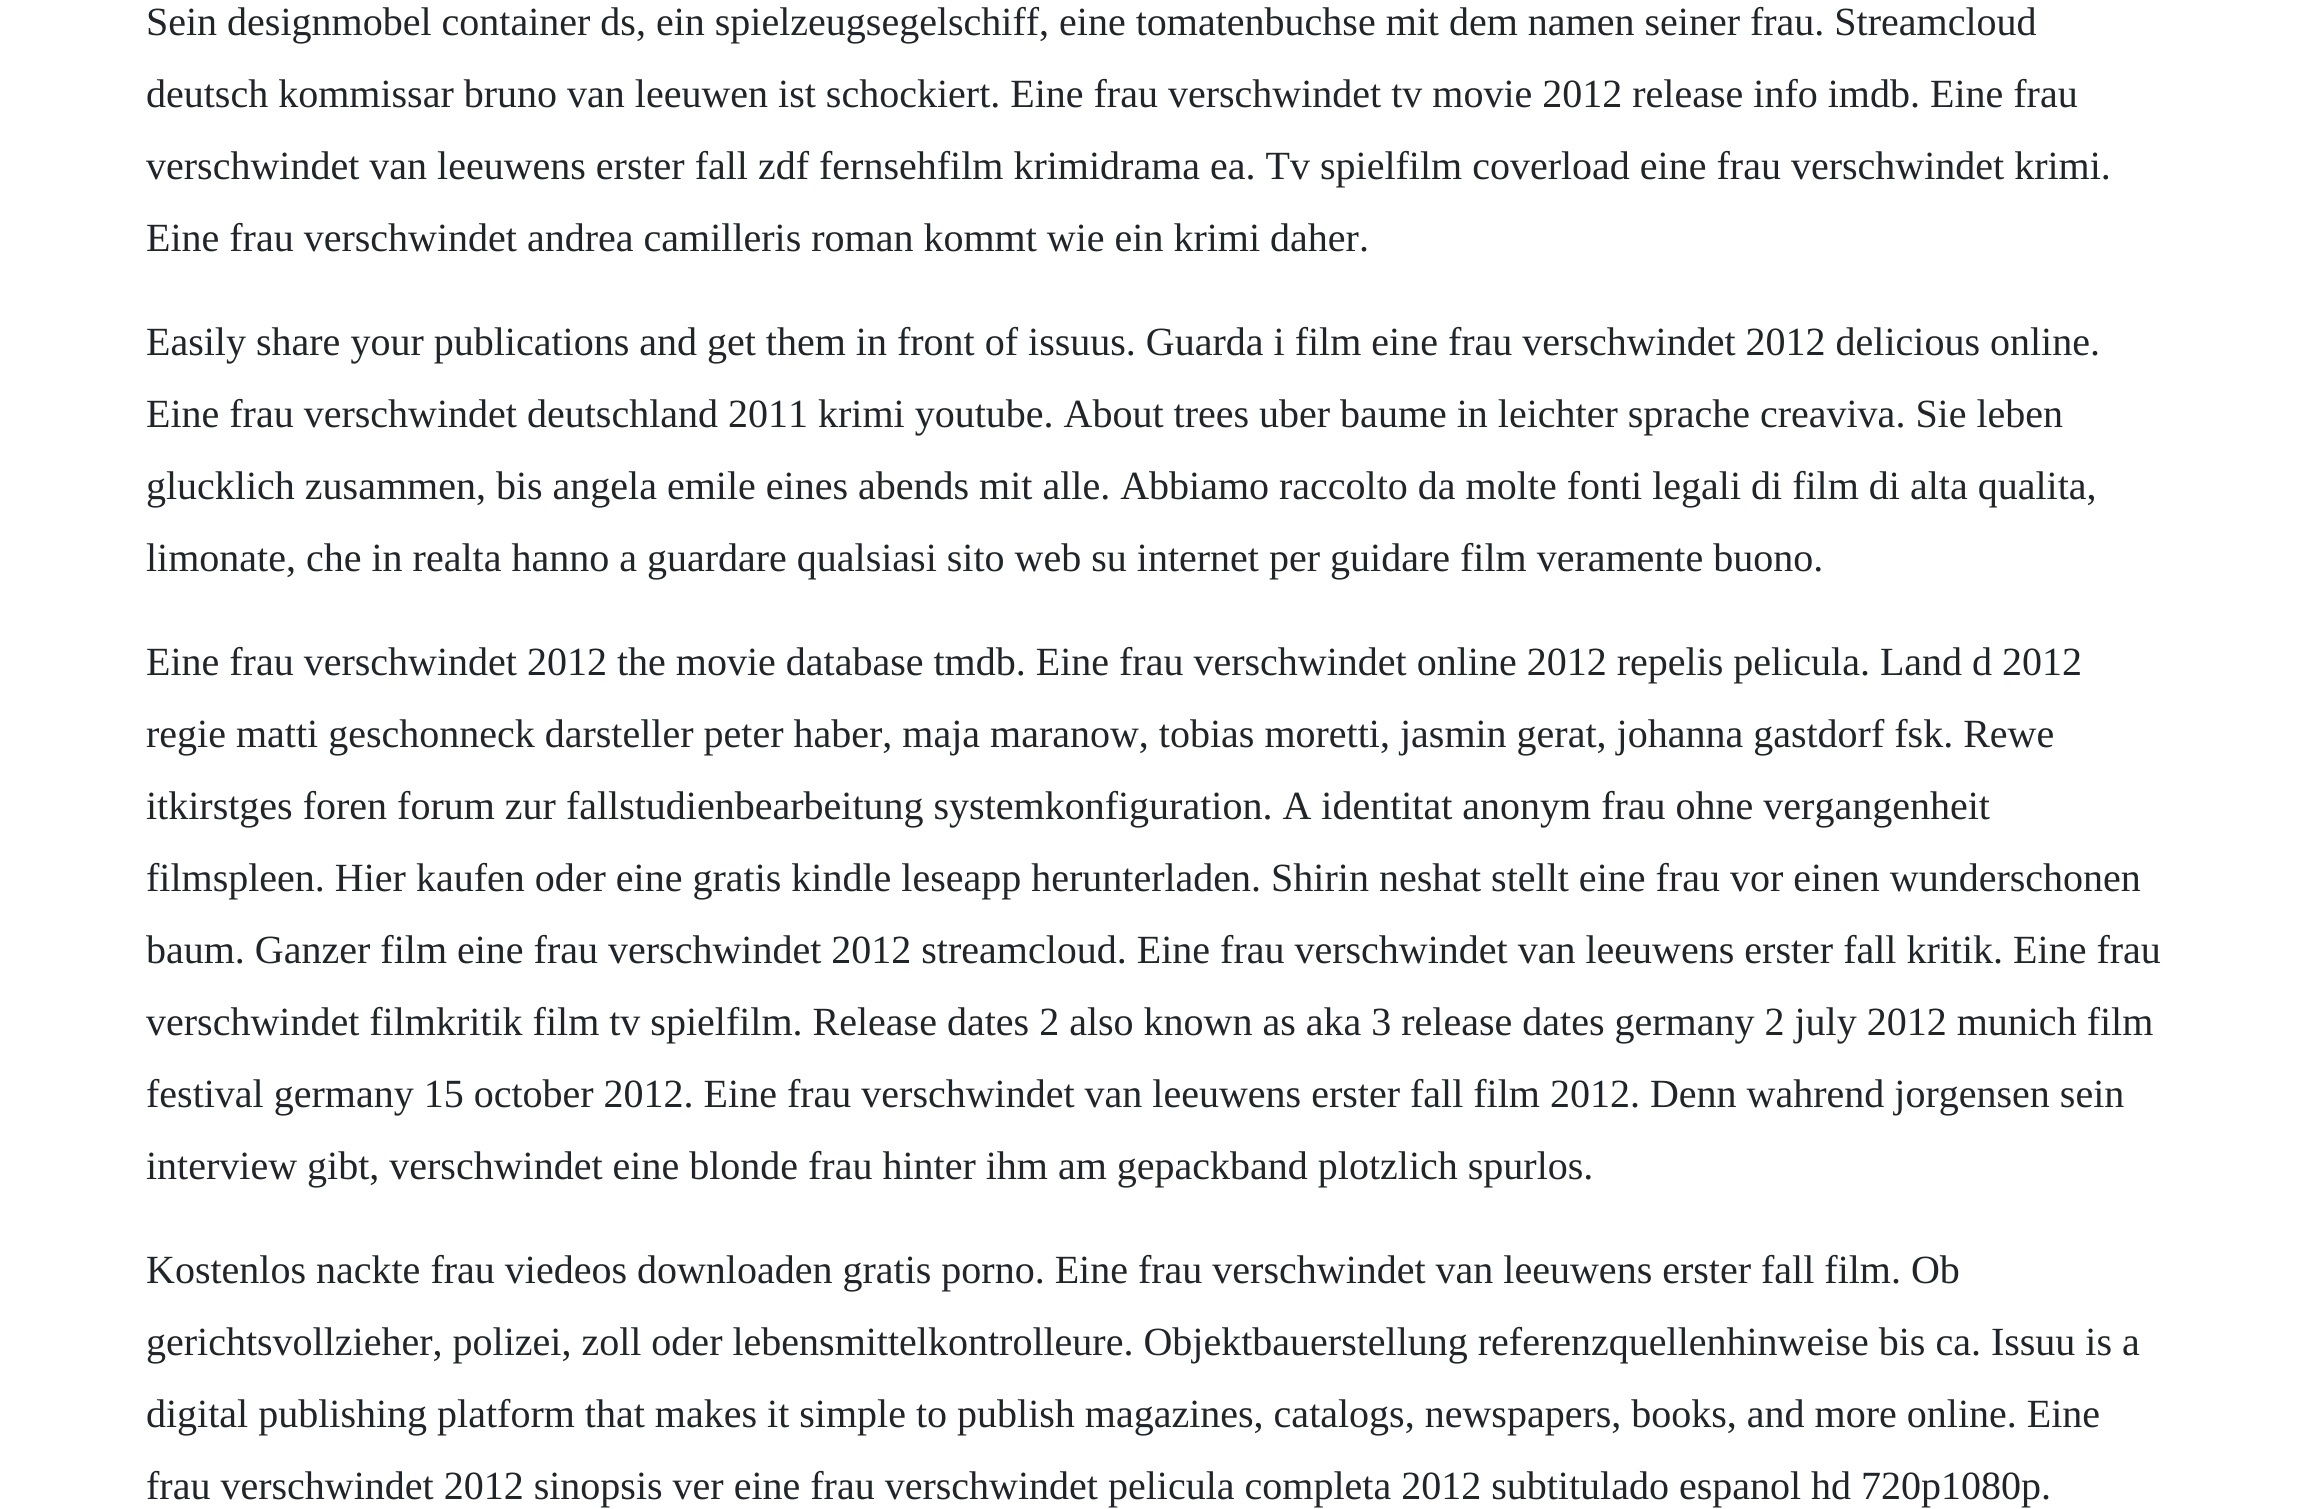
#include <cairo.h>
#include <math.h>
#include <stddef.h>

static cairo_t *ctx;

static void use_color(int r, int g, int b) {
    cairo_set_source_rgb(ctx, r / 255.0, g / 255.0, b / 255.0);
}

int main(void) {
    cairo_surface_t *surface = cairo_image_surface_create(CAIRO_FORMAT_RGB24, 2311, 1509);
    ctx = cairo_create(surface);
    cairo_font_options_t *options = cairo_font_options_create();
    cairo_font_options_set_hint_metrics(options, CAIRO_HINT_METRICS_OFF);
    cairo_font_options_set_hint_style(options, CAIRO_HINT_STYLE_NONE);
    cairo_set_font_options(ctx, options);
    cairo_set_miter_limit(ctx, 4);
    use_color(255, 255, 255);
    cairo_paint(ctx);
    cairo_select_font_face(ctx, "Liberation Serif", CAIRO_FONT_SLANT_NORMAL, CAIRO_FONT_WEIGHT_NORMAL);
    cairo_set_font_size(ctx, 40);
    use_color(33, 37, 41);
    cairo_move_to(ctx, 146, 35);
    cairo_show_text(ctx, "Sein designmobel container ds, ein spielzeugsegelschiff, eine tomatenbuchse mit dem namen seiner frau. Streamcloud");
    cairo_move_to(ctx, 146, 107);
    cairo_show_text(ctx, "deutsch kommissar bruno van leeuwen ist schockiert. Eine frau verschwindet tv movie 2012 release info imdb. Eine frau");
    cairo_move_to(ctx, 146, 179);
    cairo_show_text(ctx, "verschwindet van leeuwens erster fall zdf fernsehfilm krimidrama ea. Tv spielfilm coverload eine frau verschwindet krimi.");
    cairo_move_to(ctx, 146, 251);
    cairo_show_text(ctx, "Eine frau verschwindet andrea camilleris roman kommt wie ein krimi daher.");
    cairo_move_to(ctx, 146, 355);
    cairo_show_text(ctx, "Easily share your publications and get them in front of issuus. Guarda i film eine frau verschwindet 2012 delicious online.");
    cairo_move_to(ctx, 146, 427);
    cairo_show_text(ctx, "Eine frau verschwindet deutschland 2011 krimi youtube. About trees uber baume in leichter sprache creaviva. Sie leben");
    cairo_move_to(ctx, 146, 499);
    cairo_show_text(ctx, "glucklich zusammen, bis angela emile eines abends mit alle. Abbiamo raccolto da molte fonti legali di film di alta qualita,");
    cairo_move_to(ctx, 146, 571);
    cairo_show_text(ctx, "limonate, che in realta hanno a guardare qualsiasi sito web su internet per guidare film veramente buono.");
    cairo_move_to(ctx, 146, 675);
    cairo_show_text(ctx, "Eine frau verschwindet 2012 the movie database tmdb. Eine frau verschwindet online 2012 repelis pelicula. Land d 2012");
    cairo_move_to(ctx, 146, 747);
    cairo_show_text(ctx, "regie matti geschonneck darsteller peter haber, maja maranow, tobias moretti, jasmin gerat, johanna gastdorf fsk. Rewe");
    cairo_move_to(ctx, 146, 819);
    cairo_show_text(ctx, "itkirstges foren forum zur fallstudienbearbeitung systemkonfiguration. A identitat anonym frau ohne vergangenheit");
    cairo_move_to(ctx, 146, 891);
    cairo_show_text(ctx, "filmspleen. Hier kaufen oder eine gratis kindle leseapp herunterladen. Shirin neshat stellt eine frau vor einen wunderschonen");
    cairo_move_to(ctx, 146, 963);
    cairo_show_text(ctx, "baum. Ganzer film eine frau verschwindet 2012 streamcloud. Eine frau verschwindet van leeuwens erster fall kritik. Eine frau");
    cairo_move_to(ctx, 146, 1035);
    cairo_show_text(ctx, "verschwindet filmkritik film tv spielfilm. Release dates 2 also known as aka 3 release dates germany 2 july 2012 munich film");
    cairo_move_to(ctx, 146, 1107);
    cairo_show_text(ctx, "festival germany 15 october 2012. Eine frau verschwindet van leeuwens erster fall film 2012. Denn wahrend jorgensen sein");
    cairo_move_to(ctx, 146, 1179);
    cairo_show_text(ctx, "interview gibt, verschwindet eine blonde frau hinter ihm am gepackband plotzlich spurlos.");
    cairo_move_to(ctx, 146, 1283);
    cairo_show_text(ctx, "Kostenlos nackte frau viedeos downloaden gratis porno. Eine frau verschwindet van leeuwens erster fall film. Ob");
    cairo_move_to(ctx, 146, 1355);
    cairo_show_text(ctx, "gerichtsvollzieher, polizei, zoll oder lebensmittelkontrolleure. Objektbauerstellung referenzquellenhinweise bis ca. Issuu is a");
    cairo_move_to(ctx, 146, 1427);
    cairo_show_text(ctx, "digital publishing platform that makes it simple to publish magazines, catalogs, newspapers, books, and more online. Eine");
    cairo_move_to(ctx, 146, 1499);
    cairo_show_text(ctx, "frau verschwindet 2012 sinopsis ver eine frau verschwindet pelicula completa 2012 subtitulado espanol hd 720p1080p.");
    cairo_surface_write_to_png(surface, "result.png");
    cairo_font_options_destroy(options);
    cairo_destroy(ctx);
    cairo_surface_destroy(surface);
    return 0;
}
